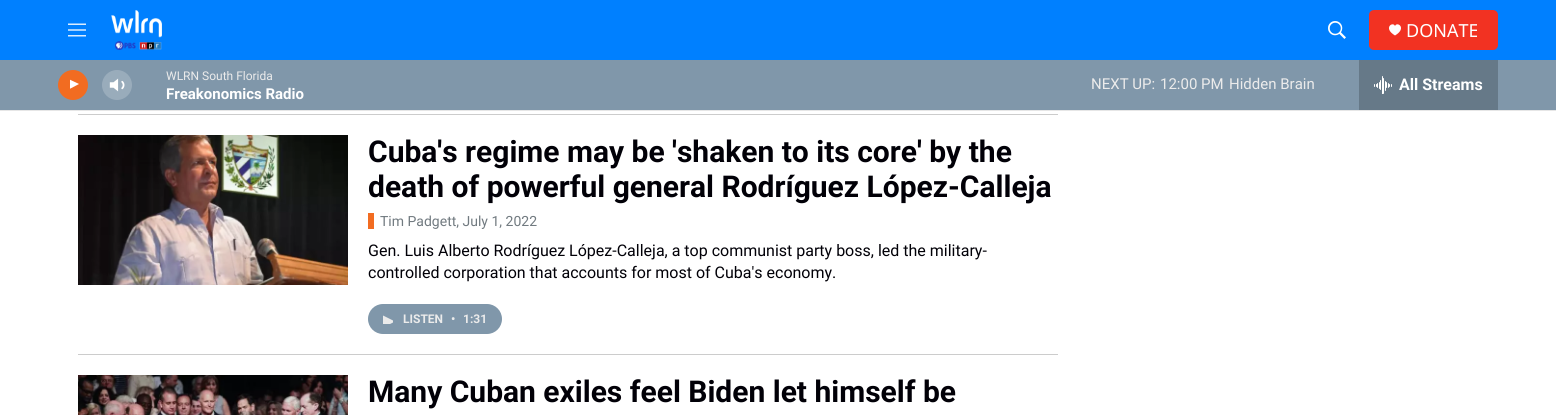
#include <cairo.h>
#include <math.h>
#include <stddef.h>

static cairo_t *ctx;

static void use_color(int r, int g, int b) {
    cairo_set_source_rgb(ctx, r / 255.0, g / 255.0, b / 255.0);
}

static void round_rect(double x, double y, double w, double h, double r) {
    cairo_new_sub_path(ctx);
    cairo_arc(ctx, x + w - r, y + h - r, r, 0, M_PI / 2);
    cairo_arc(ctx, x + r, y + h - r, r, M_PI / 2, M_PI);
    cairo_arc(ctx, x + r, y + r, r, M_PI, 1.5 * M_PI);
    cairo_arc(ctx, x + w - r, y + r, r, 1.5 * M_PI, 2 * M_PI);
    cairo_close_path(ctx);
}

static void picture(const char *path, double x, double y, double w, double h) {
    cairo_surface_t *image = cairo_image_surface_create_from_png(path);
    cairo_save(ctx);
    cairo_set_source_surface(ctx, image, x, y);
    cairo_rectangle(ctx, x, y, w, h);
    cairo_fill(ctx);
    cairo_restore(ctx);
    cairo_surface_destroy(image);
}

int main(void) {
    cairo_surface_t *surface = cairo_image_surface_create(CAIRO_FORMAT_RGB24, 1556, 415);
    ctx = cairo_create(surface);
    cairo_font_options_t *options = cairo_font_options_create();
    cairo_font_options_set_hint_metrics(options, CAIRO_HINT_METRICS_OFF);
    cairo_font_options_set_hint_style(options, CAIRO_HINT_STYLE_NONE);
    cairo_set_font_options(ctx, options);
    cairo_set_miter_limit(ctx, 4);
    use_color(255, 255, 255);
    cairo_paint(ctx);
    use_color(0, 128, 255);
    cairo_rectangle(ctx, 0, 0, 1556, 60);
    cairo_fill(ctx);
    use_color(230, 230, 230);
    cairo_rectangle(ctx, 0, 110, 1556, 1);
    cairo_fill(ctx);
    picture("img1.png", 68, 23, 18, 14);
    picture("img2.png", 111, 10, 51, 40);
    picture("img3.png", 1328, 21, 18, 18);
    use_color(242, 50, 34);
    round_rect(1369, 10, 129, 40, 5);
    cairo_fill(ctx);
    use_color(255, 255, 255);
    cairo_new_path(ctx);
    cairo_move_to(ctx, 1395, 26);
    cairo_curve_to(ctx, 1393, 21, 1382.5, 28, 1395, 35.5);
    cairo_curve_to(ctx, 1407.5, 28, 1397, 21, 1395, 26);
    cairo_close_path(ctx);
    cairo_fill(ctx);
    cairo_select_font_face(ctx, "Noto Sans", CAIRO_FONT_SLANT_NORMAL, CAIRO_FONT_WEIGHT_NORMAL);
    cairo_set_font_size(ctx, 18);
    cairo_move_to(ctx, 1406, 37);
    cairo_show_text(ctx, "DONATE");
    use_color(128, 151, 170);
    cairo_rectangle(ctx, 0, 60, 1556, 50);
    cairo_fill(ctx);
    use_color(242, 108, 33);
    cairo_arc(ctx, 73, 85, 15, 0, 2 * M_PI);
    cairo_fill(ctx);
    cairo_save(ctx);
    cairo_rectangle(ctx, 70, 78, 12, 15);
    cairo_clip(ctx);
    use_color(255, 255, 255);
    cairo_new_path(ctx);
    cairo_move_to(ctx, 69.5, 79.5);
    cairo_line_to(ctx, 79, 84);
    cairo_line_to(ctx, 69.5, 89);
    cairo_close_path(ctx);
    cairo_fill(ctx);
    cairo_restore(ctx);
    picture("img4.png", 109, 78, 16, 14);
    cairo_set_source_rgba(ctx, 1, 1, 1, 0.2);
    cairo_arc(ctx, 117, 85, 15, 0, 2 * M_PI);
    cairo_fill(ctx);
    cairo_select_font_face(ctx, "Roboto", CAIRO_FONT_SLANT_NORMAL, CAIRO_FONT_WEIGHT_NORMAL);
    cairo_set_font_size(ctx, 12);
    use_color(235, 235, 235);
    cairo_move_to(ctx, 166, 80);
    cairo_show_text(ctx, "WLRN South Florida");
    cairo_select_font_face(ctx, "Roboto", CAIRO_FONT_SLANT_NORMAL, CAIRO_FONT_WEIGHT_BOLD);
    cairo_set_font_size(ctx, 15);
    use_color(255, 255, 255);
    cairo_move_to(ctx, 166, 99);
    cairo_show_text(ctx, "Freakonomics Radio");
    cairo_select_font_face(ctx, "Roboto", CAIRO_FONT_SLANT_NORMAL, CAIRO_FONT_WEIGHT_NORMAL);
    use_color(235, 235, 235);
    cairo_move_to(ctx, 1091, 89);
    cairo_show_text(ctx, "NEXT UP:");
    cairo_move_to(ctx, 1160, 89);
    cairo_show_text(ctx, "12:00 PM");
    cairo_move_to(ctx, 1229, 89);
    cairo_show_text(ctx, "Hidden Brain");
    use_color(102, 121, 136);
    cairo_rectangle(ctx, 1359, 60, 139, 50);
    cairo_fill(ctx);
    picture("img5.png", 1374, 76, 18, 18);
    cairo_select_font_face(ctx, "Roboto", CAIRO_FONT_SLANT_NORMAL, CAIRO_FONT_WEIGHT_BOLD);
    cairo_set_font_size(ctx, 16);
    use_color(255, 255, 255);
    cairo_move_to(ctx, 1399, 90);
    cairo_show_text(ctx, "All Streams");
    use_color(204, 204, 204);
    cairo_rectangle(ctx, 78, 114, 980, 1);
    cairo_fill(ctx);
    cairo_rectangle(ctx, 78, 354, 980, 1);
    cairo_fill(ctx);
    picture("img6.png", 78, 135, 270, 150);
    cairo_set_font_size(ctx, 30);
    use_color(1, 0, 7);
    cairo_move_to(ctx, 368, 162);
    cairo_show_text(ctx, "Cuba's regime may be 'shaken to its core' by the");
    cairo_move_to(ctx, 368, 197);
    cairo_show_text(ctx, "death of powerful general Rodríguez López-Calleja");
    cairo_select_font_face(ctx, "Roboto", CAIRO_FONT_SLANT_NORMAL, CAIRO_FONT_WEIGHT_NORMAL);
    cairo_set_font_size(ctx, 14);
    use_color(113, 122, 128);
    cairo_move_to(ctx, 380, 226);
    cairo_show_text(ctx, "Tim Padgett, July 1, 2022");
    use_color(242, 108, 33);
    cairo_rectangle(ctx, 368, 213, 6, 16);
    cairo_fill(ctx);
    cairo_set_font_size(ctx, 16);
    use_color(1, 0, 7);
    cairo_move_to(ctx, 368, 256);
    cairo_show_text(ctx, "Gen. Luis Alberto Rodríguez López-Calleja, a top communist party boss, led the military-");
    cairo_move_to(ctx, 368, 278);
    cairo_show_text(ctx, "controlled corporation that accounts for most of Cuba's economy.");
    use_color(128, 151, 170);
    round_rect(368, 304, 134, 30, 15);
    cairo_fill(ctx);
    cairo_save(ctx);
    cairo_rectangle(ctx, 383, 314, 10, 10);
    cairo_clip(ctx);
    use_color(235, 235, 235);
    cairo_new_path(ctx);
    cairo_move_to(ctx, 383, 315.5);
    cairo_line_to(ctx, 395, 321.5);
    cairo_line_to(ctx, 383, 327.5);
    cairo_close_path(ctx);
    cairo_fill(ctx);
    cairo_restore(ctx);
    cairo_select_font_face(ctx, "Roboto", CAIRO_FONT_SLANT_NORMAL, CAIRO_FONT_WEIGHT_BOLD);
    cairo_set_font_size(ctx, 12);
    use_color(235, 235, 235);
    cairo_move_to(ctx, 403, 323);
    cairo_show_text(ctx, "LISTEN");
    cairo_move_to(ctx, 451, 323);
    cairo_show_text(ctx, "•");
    cairo_move_to(ctx, 463, 323);
    cairo_show_text(ctx, "1:31");
    picture("img7.png", 78, 375, 270, 40);
    cairo_set_font_size(ctx, 30);
    use_color(1, 0, 7);
    cairo_move_to(ctx, 368, 402);
    cairo_show_text(ctx, "Many Cuban exiles feel Biden let himself be");
    cairo_surface_write_to_png(surface, "result.png");
    cairo_font_options_destroy(options);
    cairo_destroy(ctx);
    cairo_surface_destroy(surface);
    return 0;
}
